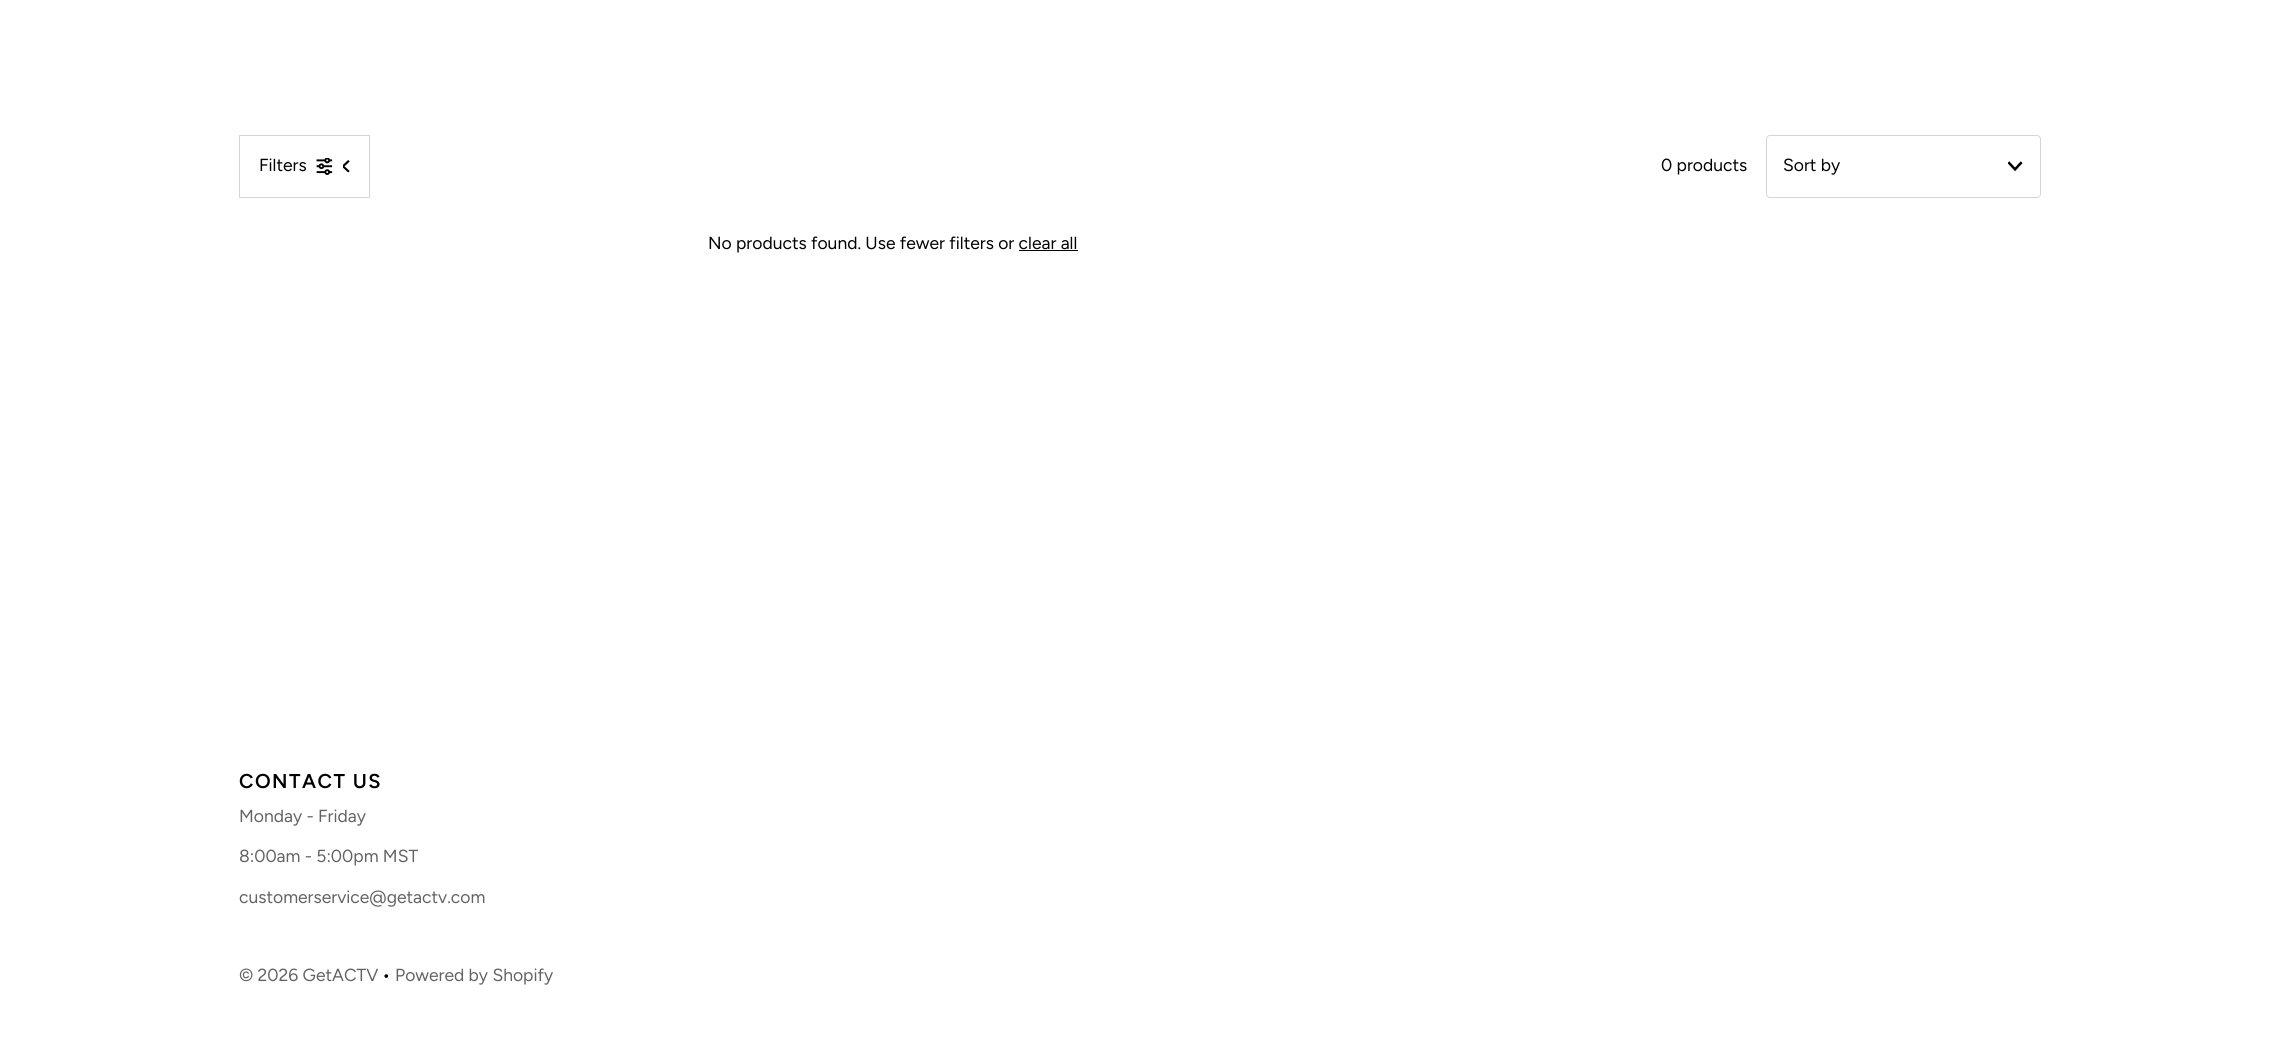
#include <cairo.h>
#include <math.h>
#include <stddef.h>

static cairo_t *ctx;

static void use_color(int r, int g, int b) {
    cairo_set_source_rgb(ctx, r / 255.0, g / 255.0, b / 255.0);
}

static void spaced_text(double x, double y, const char *s, double letter, double word) {
    cairo_move_to(ctx, x, y);
    while (*s) {
        char ch[5] = {0};
        int n = 0;
        do ch[n++] = *s++; while ((*s & 0xC0) == 0x80);
        cairo_show_text(ctx, ch);
        cairo_rel_move_to(ctx, letter + word * (*ch == ' '), 0);
    }
}

static void round_rect(double x, double y, double w, double h, double r) {
    cairo_new_sub_path(ctx);
    cairo_arc(ctx, x + w - r, y + h - r, r, 0, M_PI / 2);
    cairo_arc(ctx, x + r, y + h - r, r, M_PI / 2, M_PI);
    cairo_arc(ctx, x + r, y + r, r, M_PI, 1.5 * M_PI);
    cairo_arc(ctx, x + w - r, y + r, r, 1.5 * M_PI, 2 * M_PI);
    cairo_close_path(ctx);
}

static void picture(const char *path, double x, double y, double w, double h) {
    cairo_surface_t *image = cairo_image_surface_create_from_png(path);
    cairo_save(ctx);
    cairo_set_source_surface(ctx, image, x, y);
    cairo_rectangle(ctx, x, y, w, h);
    cairo_fill(ctx);
    cairo_restore(ctx);
    cairo_surface_destroy(image);
}

int main(void) {
    cairo_surface_t *surface = cairo_image_surface_create(CAIRO_FORMAT_RGB24, 2280, 1062);
    ctx = cairo_create(surface);
    cairo_font_options_t *options = cairo_font_options_create();
    cairo_font_options_set_hint_metrics(options, CAIRO_HINT_METRICS_OFF);
    cairo_font_options_set_hint_style(options, CAIRO_HINT_STYLE_NONE);
    cairo_set_font_options(ctx, options);
    cairo_set_miter_limit(ctx, 4);
    use_color(255, 255, 255);
    cairo_paint(ctx);
    cairo_rectangle(ctx, 239.5, 135.5, 130, 62);
    use_color(213, 213, 213);
    cairo_set_line_width(ctx, 1);
    cairo_stroke(ctx);
    cairo_select_font_face(ctx, "Figtree", CAIRO_FONT_SLANT_NORMAL, CAIRO_FONT_WEIGHT_NORMAL);
    cairo_set_font_size(ctx, 17.5);
    use_color(0, 0, 0);
    cairo_move_to(ctx, 259, 171);
    cairo_show_text(ctx, "Filters");
    picture("img1.png", 316, 158, 17, 17);
    picture("img2.png", 343, 160, 7, 13);
    cairo_move_to(ctx, 1661, 171);
    cairo_show_text(ctx, "0 products");
    round_rect(1766.5, 135.5, 274, 62, 3.5);
    use_color(213, 213, 213);
    cairo_stroke(ctx);
    use_color(0, 0, 0);
    cairo_move_to(ctx, 1783, 171);
    cairo_show_text(ctx, "Sort by");
    picture("img3.png", 2008, 161, 15, 10);
    cairo_move_to(ctx, 708, 249);
    cairo_show_text(ctx, "No products found. Use fewer filters or clear all");
    cairo_rectangle(ctx, 1019, 250, 59, 1);
    cairo_fill(ctx);
    cairo_select_font_face(ctx, "Figtree SemiBold", CAIRO_FONT_SLANT_NORMAL, CAIRO_FONT_WEIGHT_NORMAL);
    cairo_set_font_size(ctx, 20);
    spaced_text(239, 788, "CONTACT US", 1.5, 0);
    cairo_select_font_face(ctx, "Figtree", CAIRO_FONT_SLANT_NORMAL, CAIRO_FONT_WEIGHT_NORMAL);
    cairo_set_font_size(ctx, 17.5);
    use_color(100, 98, 98);
    cairo_move_to(ctx, 239, 822);
    cairo_show_text(ctx, "Monday - Friday");
    cairo_move_to(ctx, 239, 862);
    cairo_show_text(ctx, "8:00am - 5:00pm MST");
    cairo_move_to(ctx, 239, 903);
    cairo_show_text(ctx, "customerservice@getactv.com");
    cairo_move_to(ctx, 239, 981);
    cairo_show_text(ctx, "© 2026 GetACTV");
    use_color(0, 0, 0);
    cairo_move_to(ctx, 382, 981);
    cairo_show_text(ctx, "•");
    use_color(100, 98, 98);
    cairo_move_to(ctx, 395, 981);
    cairo_show_text(ctx, "Powered by Shopify");
    cairo_surface_write_to_png(surface, "result.png");
    cairo_font_options_destroy(options);
    cairo_destroy(ctx);
    cairo_surface_destroy(surface);
    return 0;
}
